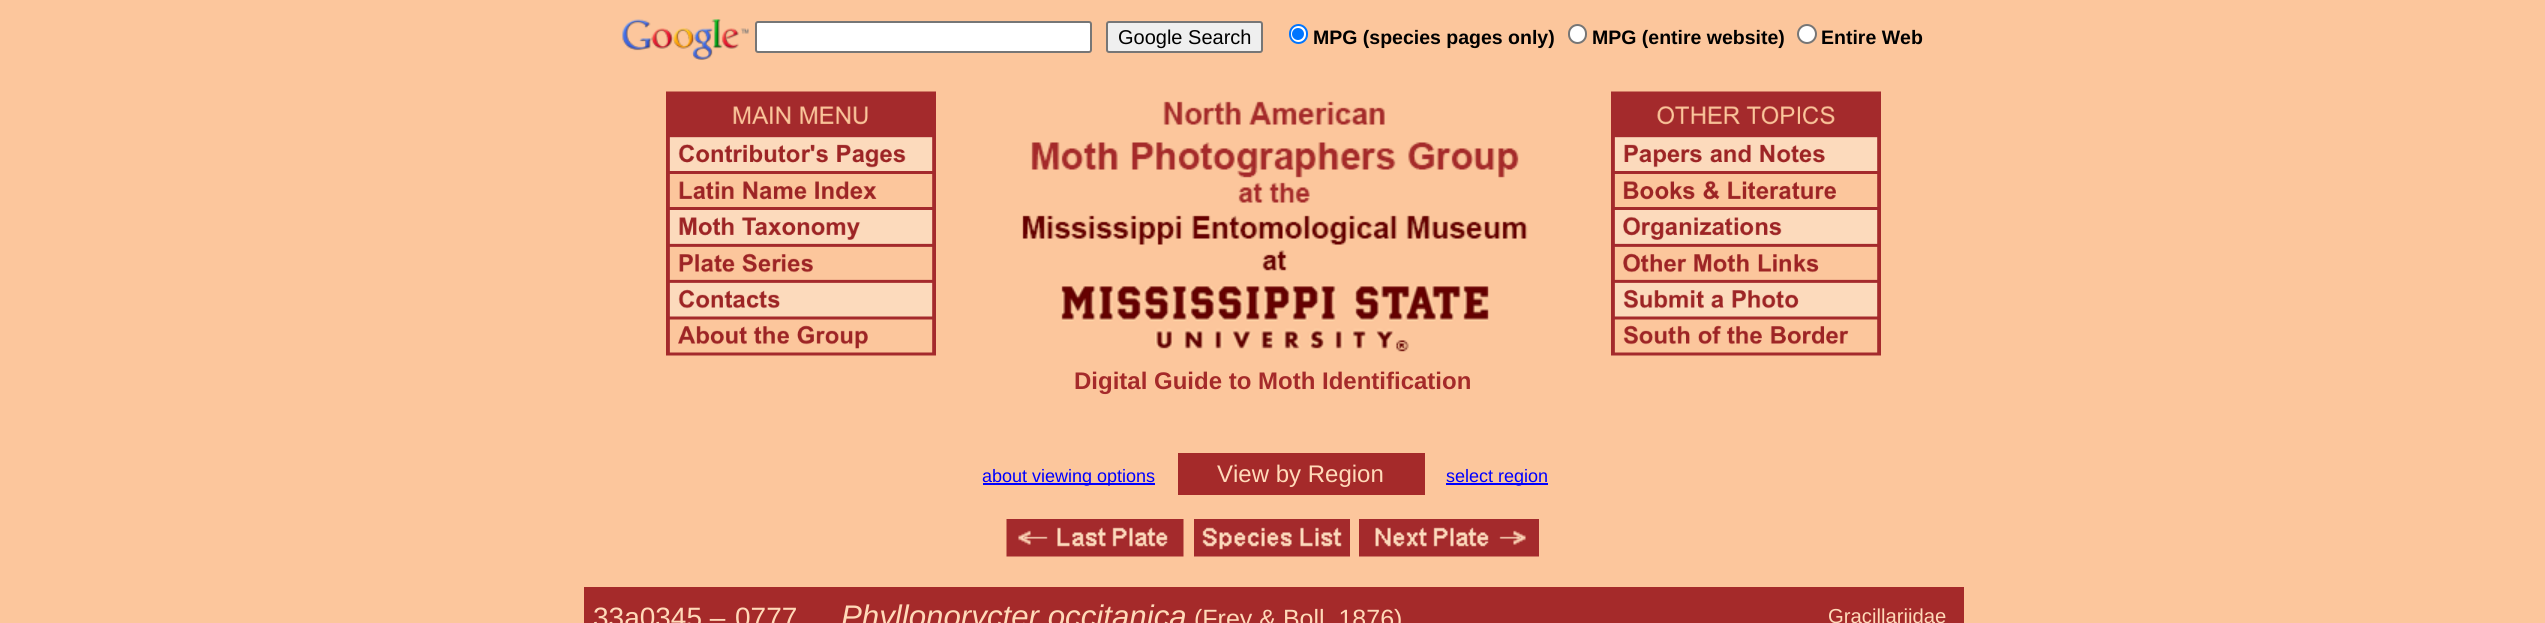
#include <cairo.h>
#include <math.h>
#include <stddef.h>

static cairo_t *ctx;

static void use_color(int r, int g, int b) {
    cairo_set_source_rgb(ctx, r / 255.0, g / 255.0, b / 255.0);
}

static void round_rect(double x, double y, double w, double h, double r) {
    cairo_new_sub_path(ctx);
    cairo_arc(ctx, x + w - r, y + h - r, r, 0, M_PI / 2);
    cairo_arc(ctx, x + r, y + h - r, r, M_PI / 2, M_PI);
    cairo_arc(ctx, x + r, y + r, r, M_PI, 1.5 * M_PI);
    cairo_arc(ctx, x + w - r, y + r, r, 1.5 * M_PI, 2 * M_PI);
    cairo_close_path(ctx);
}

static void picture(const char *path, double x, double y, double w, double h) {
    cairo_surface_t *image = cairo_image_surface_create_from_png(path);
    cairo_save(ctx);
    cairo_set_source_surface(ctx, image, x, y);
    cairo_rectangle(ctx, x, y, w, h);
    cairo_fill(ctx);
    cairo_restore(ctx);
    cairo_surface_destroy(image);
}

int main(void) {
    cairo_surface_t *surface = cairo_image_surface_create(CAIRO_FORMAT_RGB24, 2545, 623);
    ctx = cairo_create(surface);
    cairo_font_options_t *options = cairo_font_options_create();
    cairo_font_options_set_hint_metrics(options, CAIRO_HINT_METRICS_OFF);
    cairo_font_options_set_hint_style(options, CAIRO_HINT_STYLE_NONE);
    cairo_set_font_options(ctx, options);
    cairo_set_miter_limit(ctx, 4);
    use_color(252, 198, 156);
    cairo_paint(ctx);
    picture("img1.png", 622, 19, 127, 41);
    use_color(255, 255, 255);
    round_rect(756, 22, 335, 30, 2);
    cairo_fill_preserve(ctx);
    use_color(118, 118, 118);
    cairo_stroke(ctx);
    use_color(239, 239, 239);
    round_rect(1107, 22, 155, 30, 2);
    cairo_fill_preserve(ctx);
    use_color(118, 118, 118);
    cairo_stroke(ctx);
    cairo_select_font_face(ctx, "Liberation Sans", CAIRO_FONT_SLANT_NORMAL, CAIRO_FONT_WEIGHT_NORMAL);
    cairo_set_font_size(ctx, 20);
    use_color(0, 0, 0);
    cairo_move_to(ctx, 1118, 44);
    cairo_show_text(ctx, "Google Search");
    use_color(255, 255, 255);
    round_rect(1290, 25, 17, 18, 8.5);
    cairo_fill_preserve(ctx);
    use_color(0, 117, 255);
    cairo_stroke(ctx);
    cairo_arc(ctx, 1298, 34, 6, 0, 2 * M_PI);
    cairo_fill(ctx);
    cairo_select_font_face(ctx, "Liberation Sans", CAIRO_FONT_SLANT_NORMAL, CAIRO_FONT_WEIGHT_BOLD);
    cairo_set_font_size(ctx, 19.5);
    use_color(0, 0, 0);
    cairo_move_to(ctx, 1313, 44);
    cairo_show_text(ctx, "MPG (species pages only)");
    use_color(255, 255, 255);
    round_rect(1569, 25, 17, 18, 8.5);
    cairo_fill_preserve(ctx);
    use_color(118, 118, 118);
    cairo_stroke(ctx);
    use_color(0, 0, 0);
    cairo_move_to(ctx, 1592, 44);
    cairo_show_text(ctx, "MPG (entire website)");
    use_color(255, 255, 255);
    cairo_new_path(ctx);
    cairo_arc(ctx, 1807, 34, 9, 0, 2 * M_PI);
    cairo_fill_preserve(ctx);
    use_color(118, 118, 118);
    cairo_stroke(ctx);
    use_color(0, 0, 0);
    cairo_move_to(ctx, 1821, 44);
    cairo_show_text(ctx, "Entire Web");
    picture("img2.png", 666, 91, 270, 265);
    picture("img3.png", 1611, 91, 270, 265);
    picture("img4.png", 1022, 101, 506, 251);
    cairo_set_font_size(ctx, 24);
    use_color(165, 42, 42);
    cairo_move_to(ctx, 1074, 389);
    cairo_show_text(ctx, "Digital Guide to Moth Identification");
    use_color(0, 0, 255);
    cairo_rectangle(ctx, 983, 483, 172, 2);
    cairo_fill(ctx);
    cairo_select_font_face(ctx, "Liberation Sans", CAIRO_FONT_SLANT_NORMAL, CAIRO_FONT_WEIGHT_NORMAL);
    cairo_set_font_size(ctx, 18);
    cairo_move_to(ctx, 982, 482);
    cairo_show_text(ctx, "about viewing options");
    use_color(165, 42, 42);
    cairo_rectangle(ctx, 1178, 453, 247, 42);
    cairo_fill(ctx);
    cairo_set_font_size(ctx, 24);
    use_color(255, 218, 185);
    cairo_move_to(ctx, 1217, 482);
    cairo_show_text(ctx, "View by Region");
    use_color(0, 0, 255);
    cairo_rectangle(ctx, 1446, 483, 102, 2);
    cairo_fill(ctx);
    cairo_set_font_size(ctx, 18);
    cairo_move_to(ctx, 1446, 482);
    cairo_show_text(ctx, "select region");
    picture("img5.png", 1006, 519, 178, 38);
    picture("img6.png", 1194, 519, 156, 38);
    picture("img7.png", 1359, 519, 180, 38);
    use_color(165, 42, 42);
    cairo_rectangle(ctx, 584, 587, 1380, 5);
    cairo_fill(ctx);
    cairo_rectangle(ctx, 1959, 587, 5, 36);
    cairo_fill(ctx);
    cairo_rectangle(ctx, 584, 587, 5, 36);
    cairo_fill(ctx);
    cairo_rectangle(ctx, 589, 592, 1370, 31);
    cairo_fill(ctx);
    cairo_set_font_size(ctx, 28);
    use_color(255, 218, 185);
    cairo_move_to(ctx, 593, 627);
    cairo_show_text(ctx, "33a0345 –");
    cairo_move_to(ctx, 735, 627);
    cairo_show_text(ctx, "0777");
    cairo_select_font_face(ctx, "Liberation Sans", CAIRO_FONT_SLANT_ITALIC, CAIRO_FONT_WEIGHT_NORMAL);
    cairo_set_font_size(ctx, 31.25);
    cairo_move_to(ctx, 841, 627);
    cairo_show_text(ctx, "Phyllonorycter occitanica");
    cairo_select_font_face(ctx, "Liberation Sans", CAIRO_FONT_SLANT_NORMAL, CAIRO_FONT_WEIGHT_NORMAL);
    cairo_set_font_size(ctx, 25);
    cairo_move_to(ctx, 1194, 627);
    cairo_show_text(ctx, "(Frey & Boll, 1876)");
    cairo_set_font_size(ctx, 20.25);
    cairo_move_to(ctx, 1828, 623);
    cairo_show_text(ctx, "Gracillariidae");
    cairo_surface_write_to_png(surface, "result.png");
    cairo_font_options_destroy(options);
    cairo_destroy(ctx);
    cairo_surface_destroy(surface);
    return 0;
}
